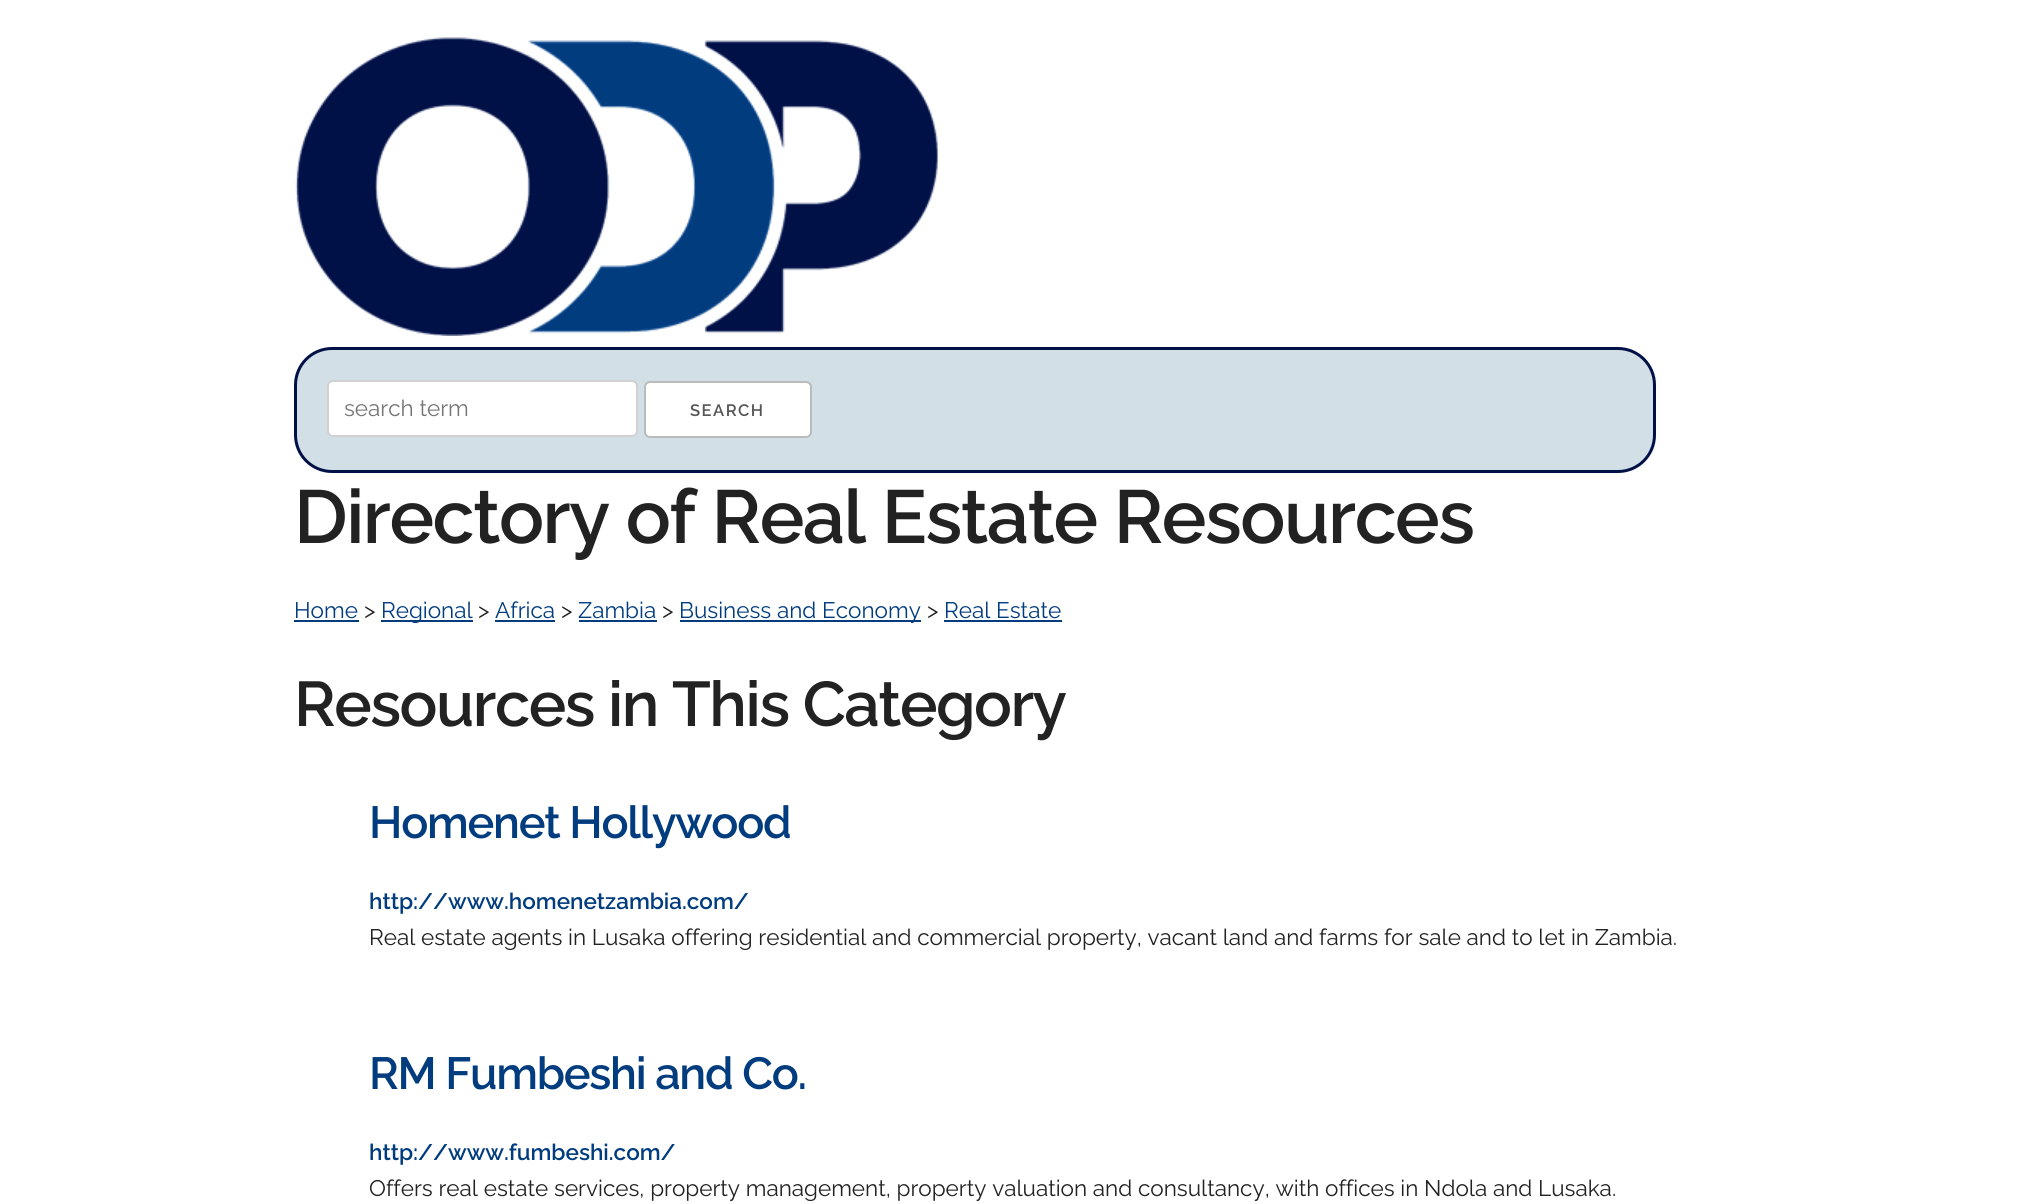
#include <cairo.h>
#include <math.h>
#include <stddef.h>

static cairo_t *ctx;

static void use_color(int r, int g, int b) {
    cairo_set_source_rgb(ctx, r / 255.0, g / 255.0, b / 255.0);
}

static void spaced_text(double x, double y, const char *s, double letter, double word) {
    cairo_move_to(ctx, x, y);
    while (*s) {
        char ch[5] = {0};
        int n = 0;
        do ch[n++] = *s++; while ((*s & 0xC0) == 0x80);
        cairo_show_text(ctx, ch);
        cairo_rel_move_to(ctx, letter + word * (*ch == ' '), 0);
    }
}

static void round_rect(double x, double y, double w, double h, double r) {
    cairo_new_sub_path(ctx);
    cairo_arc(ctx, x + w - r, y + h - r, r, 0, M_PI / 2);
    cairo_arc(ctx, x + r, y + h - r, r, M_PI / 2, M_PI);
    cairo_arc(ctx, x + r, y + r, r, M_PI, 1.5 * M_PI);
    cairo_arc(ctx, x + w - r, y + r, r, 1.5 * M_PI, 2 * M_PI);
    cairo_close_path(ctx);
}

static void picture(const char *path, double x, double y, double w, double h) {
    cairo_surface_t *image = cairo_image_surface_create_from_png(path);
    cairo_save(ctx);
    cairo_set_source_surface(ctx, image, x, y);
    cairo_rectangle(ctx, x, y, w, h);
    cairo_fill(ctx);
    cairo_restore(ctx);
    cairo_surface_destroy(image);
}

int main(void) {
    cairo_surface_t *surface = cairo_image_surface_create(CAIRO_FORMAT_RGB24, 2027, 1204);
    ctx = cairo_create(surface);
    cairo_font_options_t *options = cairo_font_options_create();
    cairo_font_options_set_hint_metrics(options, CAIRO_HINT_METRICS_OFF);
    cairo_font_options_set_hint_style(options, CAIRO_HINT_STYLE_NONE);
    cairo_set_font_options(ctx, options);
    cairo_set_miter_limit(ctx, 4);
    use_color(255, 255, 255);
    cairo_paint(ctx);
    picture("img1.png", 295, 37, 644, 299);
    use_color(211, 223, 230);
    round_rect(295.5, 348.5, 1359, 123, 36.5);
    cairo_fill_preserve(ctx);
    use_color(0, 17, 71);
    cairo_set_line_width(ctx, 3);
    cairo_stroke(ctx);
    use_color(255, 255, 255);
    round_rect(328, 381, 309, 55, 5);
    cairo_fill_preserve(ctx);
    use_color(209, 209, 209);
    cairo_set_line_width(ctx, 2);
    cairo_stroke(ctx);
    cairo_select_font_face(ctx, "Raleway", CAIRO_FONT_SLANT_NORMAL, CAIRO_FONT_WEIGHT_NORMAL);
    cairo_set_font_size(ctx, 22.5);
    use_color(117, 117, 117);
    cairo_move_to(ctx, 344, 416);
    cairo_show_text(ctx, "search term");
    use_color(255, 255, 255);
    round_rect(645, 382, 166, 55, 5);
    cairo_fill_preserve(ctx);
    use_color(187, 187, 187);
    cairo_stroke(ctx);
    cairo_select_font_face(ctx, "Raleway SemiBold", CAIRO_FONT_SLANT_NORMAL, CAIRO_FONT_WEIGHT_NORMAL);
    cairo_set_font_size(ctx, 16.5);
    use_color(85, 85, 85);
    spaced_text(690, 416, "SEARCH", 1.5, 0);
    cairo_set_font_size(ctx, 75);
    use_color(34, 34, 34);
    spaced_text(294, 543, "Directory of Real Estate Resources", -1.5, 0);
    cairo_select_font_face(ctx, "Raleway", CAIRO_FONT_SLANT_NORMAL, CAIRO_FONT_WEIGHT_NORMAL);
    cairo_set_font_size(ctx, 22.5);
    use_color(1, 60, 127);
    cairo_move_to(ctx, 294, 618);
    cairo_show_text(ctx, "Home");
    cairo_rectangle(ctx, 294, 620, 65, 2);
    cairo_fill(ctx);
    use_color(34, 34, 34);
    cairo_move_to(ctx, 364, 618);
    cairo_show_text(ctx, ">");
    use_color(1, 60, 127);
    cairo_rectangle(ctx, 381, 620, 92, 2);
    cairo_fill(ctx);
    cairo_move_to(ctx, 381, 618);
    cairo_show_text(ctx, "Regional");
    use_color(34, 34, 34);
    cairo_move_to(ctx, 478, 618);
    cairo_show_text(ctx, ">");
    use_color(1, 60, 127);
    cairo_move_to(ctx, 495, 618);
    cairo_show_text(ctx, "Africa");
    cairo_rectangle(ctx, 495, 620, 60, 2);
    cairo_fill(ctx);
    use_color(34, 34, 34);
    cairo_move_to(ctx, 561, 618);
    cairo_show_text(ctx, ">");
    use_color(1, 60, 127);
    cairo_move_to(ctx, 578, 618);
    cairo_show_text(ctx, "Zambia");
    cairo_rectangle(ctx, 579, 620, 78, 2);
    cairo_fill(ctx);
    use_color(34, 34, 34);
    cairo_move_to(ctx, 662, 618);
    cairo_show_text(ctx, ">");
    use_color(1, 60, 127);
    cairo_rectangle(ctx, 680, 620, 241, 2);
    cairo_fill(ctx);
    cairo_move_to(ctx, 679, 618);
    cairo_show_text(ctx, "Business and Economy");
    use_color(34, 34, 34);
    cairo_move_to(ctx, 927, 618);
    cairo_show_text(ctx, ">");
    use_color(1, 60, 127);
    cairo_move_to(ctx, 944, 618);
    cairo_show_text(ctx, "Real Estate");
    cairo_rectangle(ctx, 944, 620, 118, 2);
    cairo_fill(ctx);
    cairo_select_font_face(ctx, "Raleway SemiBold", CAIRO_FONT_SLANT_NORMAL, CAIRO_FONT_WEIGHT_NORMAL);
    cairo_set_font_size(ctx, 63);
    use_color(34, 34, 34);
    spaced_text(294, 726, "Resources in This Category", -1.5, 0);
    cairo_set_font_size(ctx, 45);
    use_color(1, 60, 127);
    spaced_text(369, 838, "Homenet Hollywood", -1.25, 0);
    cairo_set_font_size(ctx, 22.5);
    cairo_move_to(ctx, 369, 909);
    cairo_show_text(ctx, "http://www.homenetzambia.com/");
    cairo_select_font_face(ctx, "Raleway", CAIRO_FONT_SLANT_NORMAL, CAIRO_FONT_WEIGHT_NORMAL);
    use_color(34, 34, 34);
    cairo_move_to(ctx, 369, 945);
    cairo_show_text(ctx, "Real estate agents in Lusaka offering residential and commercial property, vacant land and farms for sale and to let in Zambia.");
    cairo_select_font_face(ctx, "Raleway SemiBold", CAIRO_FONT_SLANT_NORMAL, CAIRO_FONT_WEIGHT_NORMAL);
    cairo_set_font_size(ctx, 45);
    use_color(1, 60, 127);
    spaced_text(369, 1089, "RM Fumbeshi and Co.", -1.25, 0);
    cairo_set_font_size(ctx, 22.5);
    cairo_move_to(ctx, 369, 1160);
    cairo_show_text(ctx, "http://www.fumbeshi.com/");
    cairo_select_font_face(ctx, "Raleway", CAIRO_FONT_SLANT_NORMAL, CAIRO_FONT_WEIGHT_NORMAL);
    use_color(34, 34, 34);
    cairo_move_to(ctx, 369, 1196);
    cairo_show_text(ctx, "Offers real estate services, property management, property valuation and consultancy, with offices in Ndola and Lusaka.");
    cairo_surface_write_to_png(surface, "result.png");
    cairo_font_options_destroy(options);
    cairo_destroy(ctx);
    cairo_surface_destroy(surface);
    return 0;
}
